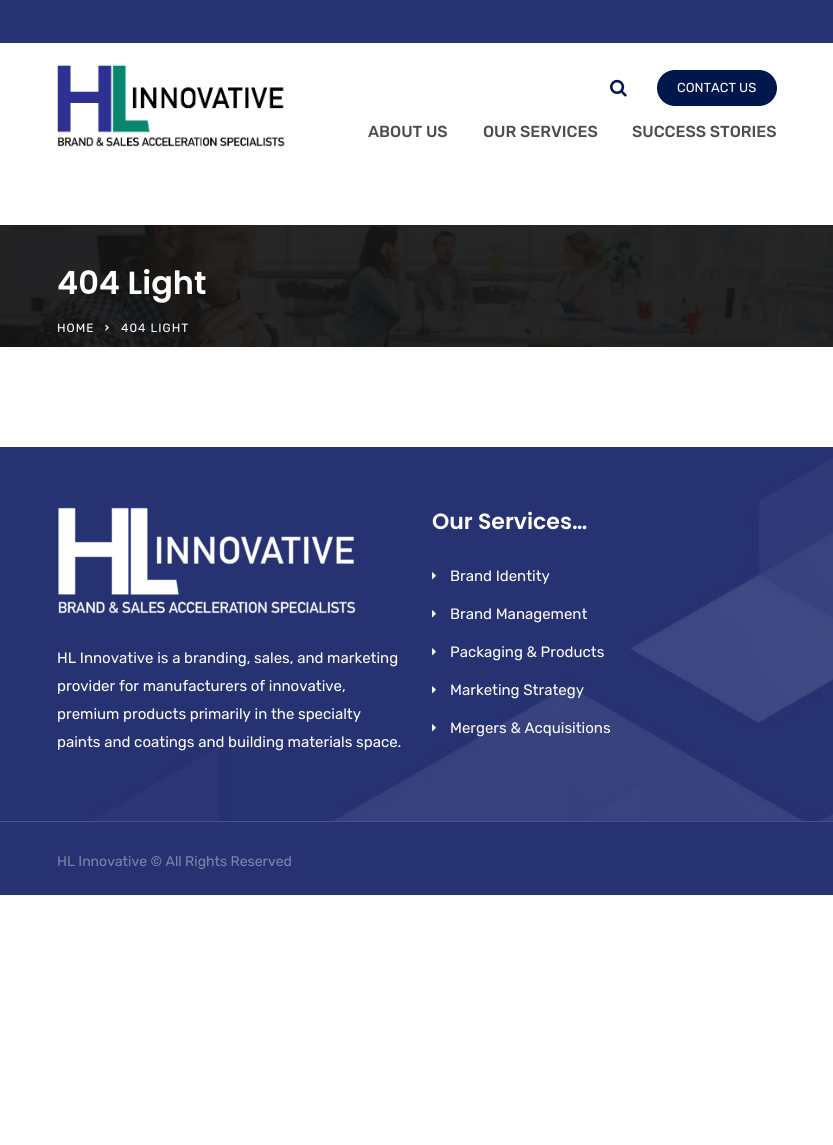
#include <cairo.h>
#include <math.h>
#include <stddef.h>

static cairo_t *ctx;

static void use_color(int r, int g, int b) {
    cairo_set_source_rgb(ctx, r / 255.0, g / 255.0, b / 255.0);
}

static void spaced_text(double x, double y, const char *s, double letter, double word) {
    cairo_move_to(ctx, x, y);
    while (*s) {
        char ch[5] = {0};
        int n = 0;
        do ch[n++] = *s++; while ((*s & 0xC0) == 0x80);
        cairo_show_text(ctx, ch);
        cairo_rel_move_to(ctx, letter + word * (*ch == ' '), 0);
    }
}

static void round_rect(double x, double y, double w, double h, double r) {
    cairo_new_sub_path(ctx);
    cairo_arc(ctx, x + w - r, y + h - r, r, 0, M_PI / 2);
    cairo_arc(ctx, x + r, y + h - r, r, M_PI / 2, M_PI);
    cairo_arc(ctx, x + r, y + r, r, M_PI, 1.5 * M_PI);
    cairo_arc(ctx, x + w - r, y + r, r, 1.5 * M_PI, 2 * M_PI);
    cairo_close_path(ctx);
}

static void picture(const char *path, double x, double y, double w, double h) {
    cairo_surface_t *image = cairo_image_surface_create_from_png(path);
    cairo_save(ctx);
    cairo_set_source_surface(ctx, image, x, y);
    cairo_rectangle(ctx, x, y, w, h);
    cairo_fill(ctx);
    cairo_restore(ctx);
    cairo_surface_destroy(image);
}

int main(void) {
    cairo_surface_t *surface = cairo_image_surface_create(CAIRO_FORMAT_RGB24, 833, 1145);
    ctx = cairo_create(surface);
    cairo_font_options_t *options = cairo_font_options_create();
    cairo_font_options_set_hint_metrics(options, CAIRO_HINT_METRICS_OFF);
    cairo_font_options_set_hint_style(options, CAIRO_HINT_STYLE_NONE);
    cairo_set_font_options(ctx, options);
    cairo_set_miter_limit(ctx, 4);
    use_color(255, 255, 255);
    cairo_paint(ctx);
    use_color(39, 50, 114);
    cairo_rectangle(ctx, 0, 0, 833, 43);
    cairo_fill(ctx);
    picture("img1.png", 57, 65, 228, 82);
    picture("img2.png", 610, 79, 17, 18);
    use_color(0, 23, 77);
    round_rect(657, 70, 120, 36, 18);
    cairo_fill(ctx);
    cairo_select_font_face(ctx, "Rubik", CAIRO_FONT_SLANT_NORMAL, CAIRO_FONT_WEIGHT_NORMAL);
    cairo_set_font_size(ctx, 13);
    use_color(255, 255, 255);
    cairo_move_to(ctx, 677, 92);
    cairo_show_text(ctx, "CONTACT US");
    cairo_select_font_face(ctx, "Rubik Medium", CAIRO_FONT_SLANT_NORMAL, CAIRO_FONT_WEIGHT_NORMAL);
    cairo_set_font_size(ctx, 16);
    use_color(77, 77, 77);
    cairo_move_to(ctx, 368, 137);
    cairo_show_text(ctx, "ABOUT US");
    cairo_move_to(ctx, 483, 137);
    cairo_show_text(ctx, "OUR SERVICES");
    cairo_move_to(ctx, 632, 137);
    cairo_show_text(ctx, "SUCCESS STORIES");
    picture("img3.png", 0, 225, 833, 122);
    cairo_select_font_face(ctx, "Poppins SemiBold", CAIRO_FONT_SLANT_NORMAL, CAIRO_FONT_WEIGHT_NORMAL);
    cairo_set_font_size(ctx, 32);
    use_color(255, 255, 255);
    cairo_move_to(ctx, 57, 294);
    cairo_show_text(ctx, "404 Light");
    cairo_select_font_face(ctx, "Rubik", CAIRO_FONT_SLANT_NORMAL, CAIRO_FONT_WEIGHT_NORMAL);
    cairo_set_font_size(ctx, 12);
    spaced_text(57, 332, "HOME", 1, 0);
    picture("img4.png", 105, 324, 4, 7);
    spaced_text(121, 332, "404 LIGHT", 1, 0);
    use_color(39, 50, 114);
    cairo_rectangle(ctx, 0, 447, 833, 11);
    cairo_fill(ctx);
    picture("img5.png", 0, 458, 833, 363);
    use_color(69, 80, 142);
    cairo_rectangle(ctx, 0, 821, 833, 1);
    cairo_fill(ctx);
    picture("img6.png", 58, 507, 298, 107);
    cairo_set_font_size(ctx, 15);
    use_color(255, 255, 255);
    cairo_move_to(ctx, 57, 663);
    cairo_show_text(ctx, "HL Innovative is a branding, sales, and marketing");
    cairo_move_to(ctx, 57, 691);
    cairo_show_text(ctx, "provider for manufacturers of innovative,");
    cairo_move_to(ctx, 57, 719);
    cairo_show_text(ctx, "premium products primarily in the specialty");
    cairo_move_to(ctx, 57, 747);
    cairo_show_text(ctx, "paints and coatings and building materials space.");
    cairo_select_font_face(ctx, "Poppins SemiBold", CAIRO_FONT_SLANT_NORMAL, CAIRO_FONT_WEIGHT_NORMAL);
    cairo_set_font_size(ctx, 22);
    cairo_move_to(ctx, 432, 529);
    cairo_show_text(ctx, "Our Services…");
    picture("img7.png", 432, 572, 4, 8);
    cairo_select_font_face(ctx, "Rubik", CAIRO_FONT_SLANT_NORMAL, CAIRO_FONT_WEIGHT_NORMAL);
    cairo_set_font_size(ctx, 15);
    cairo_move_to(ctx, 450, 581);
    cairo_show_text(ctx, "Brand Identity");
    picture("img7.png", 432, 610, 4, 8);
    cairo_move_to(ctx, 450, 619);
    cairo_show_text(ctx, "Brand Management");
    picture("img7.png", 432, 648, 4, 8);
    cairo_move_to(ctx, 450, 657);
    cairo_show_text(ctx, "Packaging & Products");
    picture("img7.png", 432, 686, 4, 8);
    cairo_move_to(ctx, 450, 695);
    cairo_show_text(ctx, "Marketing Strategy");
    picture("img7.png", 432, 724, 4, 8);
    cairo_move_to(ctx, 450, 733);
    cairo_show_text(ctx, "Mergers & Acquisitions");
    use_color(39, 50, 114);
    cairo_rectangle(ctx, 0, 822, 833, 73);
    cairo_fill(ctx);
    cairo_set_font_size(ctx, 14);
    use_color(125, 132, 170);
    cairo_move_to(ctx, 57, 866);
    cairo_show_text(ctx, "HL Innovative © All Rights Reserved");
    cairo_surface_write_to_png(surface, "result.png");
    cairo_font_options_destroy(options);
    cairo_destroy(ctx);
    cairo_surface_destroy(surface);
    return 0;
}
